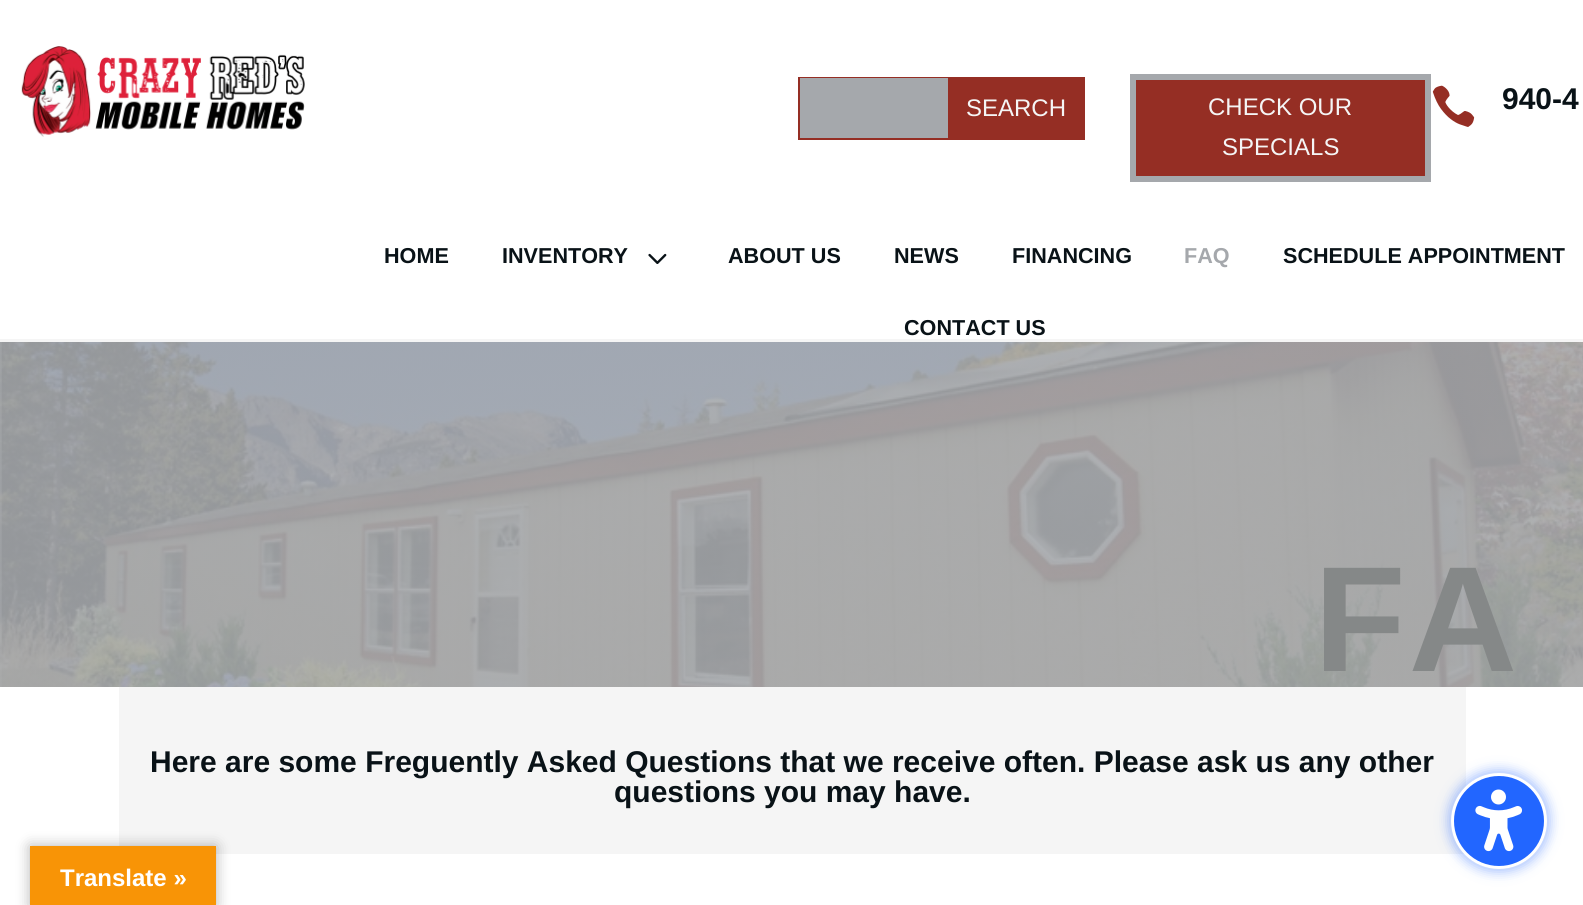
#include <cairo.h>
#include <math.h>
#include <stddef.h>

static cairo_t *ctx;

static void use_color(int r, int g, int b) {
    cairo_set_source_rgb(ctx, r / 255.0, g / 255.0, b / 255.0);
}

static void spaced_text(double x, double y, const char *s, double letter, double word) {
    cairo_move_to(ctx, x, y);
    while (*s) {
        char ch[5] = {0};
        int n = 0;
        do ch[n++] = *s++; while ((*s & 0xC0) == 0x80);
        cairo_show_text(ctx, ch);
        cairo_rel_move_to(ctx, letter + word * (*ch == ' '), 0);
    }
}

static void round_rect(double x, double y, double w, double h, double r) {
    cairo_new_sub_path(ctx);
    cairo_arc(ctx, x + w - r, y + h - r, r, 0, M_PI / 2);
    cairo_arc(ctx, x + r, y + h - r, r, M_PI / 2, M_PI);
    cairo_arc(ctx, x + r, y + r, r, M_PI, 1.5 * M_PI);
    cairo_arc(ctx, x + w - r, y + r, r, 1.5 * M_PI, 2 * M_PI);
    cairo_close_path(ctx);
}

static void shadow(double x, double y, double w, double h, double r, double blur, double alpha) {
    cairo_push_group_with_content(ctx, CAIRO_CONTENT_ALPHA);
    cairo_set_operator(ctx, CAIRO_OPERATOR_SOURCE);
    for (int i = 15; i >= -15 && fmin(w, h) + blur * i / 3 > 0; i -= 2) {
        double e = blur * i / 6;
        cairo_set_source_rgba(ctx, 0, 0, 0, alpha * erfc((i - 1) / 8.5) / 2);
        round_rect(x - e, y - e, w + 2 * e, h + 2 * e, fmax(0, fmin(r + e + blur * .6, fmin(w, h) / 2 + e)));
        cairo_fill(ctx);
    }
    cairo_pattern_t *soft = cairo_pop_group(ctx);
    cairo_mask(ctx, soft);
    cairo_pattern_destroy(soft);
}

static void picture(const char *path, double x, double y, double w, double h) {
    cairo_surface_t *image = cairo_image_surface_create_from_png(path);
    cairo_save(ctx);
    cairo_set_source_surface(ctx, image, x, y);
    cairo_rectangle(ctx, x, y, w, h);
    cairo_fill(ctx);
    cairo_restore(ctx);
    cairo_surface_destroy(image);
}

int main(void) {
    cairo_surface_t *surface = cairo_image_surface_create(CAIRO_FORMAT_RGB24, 1583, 905);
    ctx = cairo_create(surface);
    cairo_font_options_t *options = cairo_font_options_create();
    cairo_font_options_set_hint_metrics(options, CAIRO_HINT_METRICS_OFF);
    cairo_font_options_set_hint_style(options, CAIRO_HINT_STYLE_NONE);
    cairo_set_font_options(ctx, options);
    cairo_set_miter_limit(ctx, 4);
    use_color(255, 255, 255);
    cairo_paint(ctx);
    use_color(245, 245, 245);
    cairo_rectangle(ctx, 0, 339, 1583, 3);
    cairo_fill(ctx);
    picture("img1.png", 21, 46, 284, 91);
    cairo_rectangle(ctx, 799, 78, 285, 61);
    use_color(149, 46, 36);
    cairo_stroke(ctx);
    use_color(165, 168, 172);
    cairo_rectangle(ctx, 800, 78, 148, 60);
    cairo_fill(ctx);
    use_color(149, 46, 36);
    cairo_rectangle(ctx, 948, 79, 135, 59);
    cairo_fill(ctx);
    cairo_select_font_face(ctx, "Liberation Sans", CAIRO_FONT_SLANT_NORMAL, CAIRO_FONT_WEIGHT_NORMAL);
    cairo_set_font_size(ctx, 24);
    use_color(245, 245, 245);
    cairo_move_to(ctx, 966, 116);
    cairo_show_text(ctx, "SEARCH");
    use_color(149, 46, 36);
    cairo_rectangle(ctx, 1133, 77, 295, 102);
    cairo_fill_preserve(ctx);
    use_color(165, 168, 172);
    cairo_set_line_width(ctx, 6);
    cairo_stroke(ctx);
    use_color(245, 245, 245);
    cairo_move_to(ctx, 1208, 115);
    cairo_show_text(ctx, "CHECK OUR");
    cairo_move_to(ctx, 1222, 155);
    cairo_show_text(ctx, "SPECIALS");
    picture("img2.png", 1432, 85, 43, 42);
    cairo_select_font_face(ctx, "Liberation Sans", CAIRO_FONT_SLANT_NORMAL, CAIRO_FONT_WEIGHT_BOLD);
    cairo_set_font_size(ctx, 30);
    use_color(9, 18, 23);
    cairo_move_to(ctx, 1502, 109);
    cairo_show_text(ctx, "940-4");
    cairo_set_font_size(ctx, 21.6);
    cairo_move_to(ctx, 384, 263);
    cairo_show_text(ctx, "HOME");
    cairo_move_to(ctx, 502, 263);
    cairo_show_text(ctx, "INVENTORY");
    picture("img3.png", 648, 253, 19, 11);
    cairo_move_to(ctx, 728, 263);
    cairo_show_text(ctx, "ABOUT US");
    cairo_move_to(ctx, 894, 263);
    cairo_show_text(ctx, "NEWS");
    cairo_move_to(ctx, 1012, 263);
    cairo_show_text(ctx, "FINANCING");
    use_color(165, 168, 172);
    cairo_move_to(ctx, 1184, 263);
    cairo_show_text(ctx, "FAQ");
    use_color(9, 18, 23);
    cairo_move_to(ctx, 1283, 263);
    cairo_show_text(ctx, "SCHEDULE APPOINTMENT");
    cairo_move_to(ctx, 904, 335);
    cairo_show_text(ctx, "CONTACT US");
    picture("img4.png", 0, 342, 1583, 345);
    cairo_set_font_size(ctx, 150);
    use_color(133, 136, 136);
    spaced_text(1314, 671, "FA", 3, 0);
    use_color(245, 245, 245);
    cairo_rectangle(ctx, 119, 687, 1347, 167);
    cairo_fill(ctx);
    cairo_set_font_size(ctx, 30);
    use_color(9, 18, 23);
    cairo_move_to(ctx, 150, 772);
    cairo_show_text(ctx, "Here are some Freguently Asked Questions that we receive often. Please ask us any other");
    cairo_move_to(ctx, 614, 802);
    cairo_show_text(ctx, "questions you may have.");
    use_color(0, 0, 0);
    shadow(30, 846, 186, 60, 0, 7, 0.3);
    use_color(248, 148, 6);
    cairo_rectangle(ctx, 30, 846, 186, 59);
    cairo_fill(ctx);
    cairo_set_font_size(ctx, 24);
    use_color(255, 255, 255);
    cairo_move_to(ctx, 60, 886);
    cairo_show_text(ctx, "Translate »");
    use_color(34, 102, 255);
    shadow(1448, 770, 102, 102, 51, 6, 0.4);
    use_color(34, 102, 255);
    cairo_arc(ctx, 1499, 821, 46.5, 0, 2 * M_PI);
    cairo_fill_preserve(ctx);
    use_color(255, 255, 255);
    cairo_set_line_width(ctx, 3);
    cairo_stroke(ctx);
    picture("img5.png", 1475, 789, 47, 63);
    cairo_surface_write_to_png(surface, "result.png");
    cairo_font_options_destroy(options);
    cairo_destroy(ctx);
    cairo_surface_destroy(surface);
    return 0;
}
